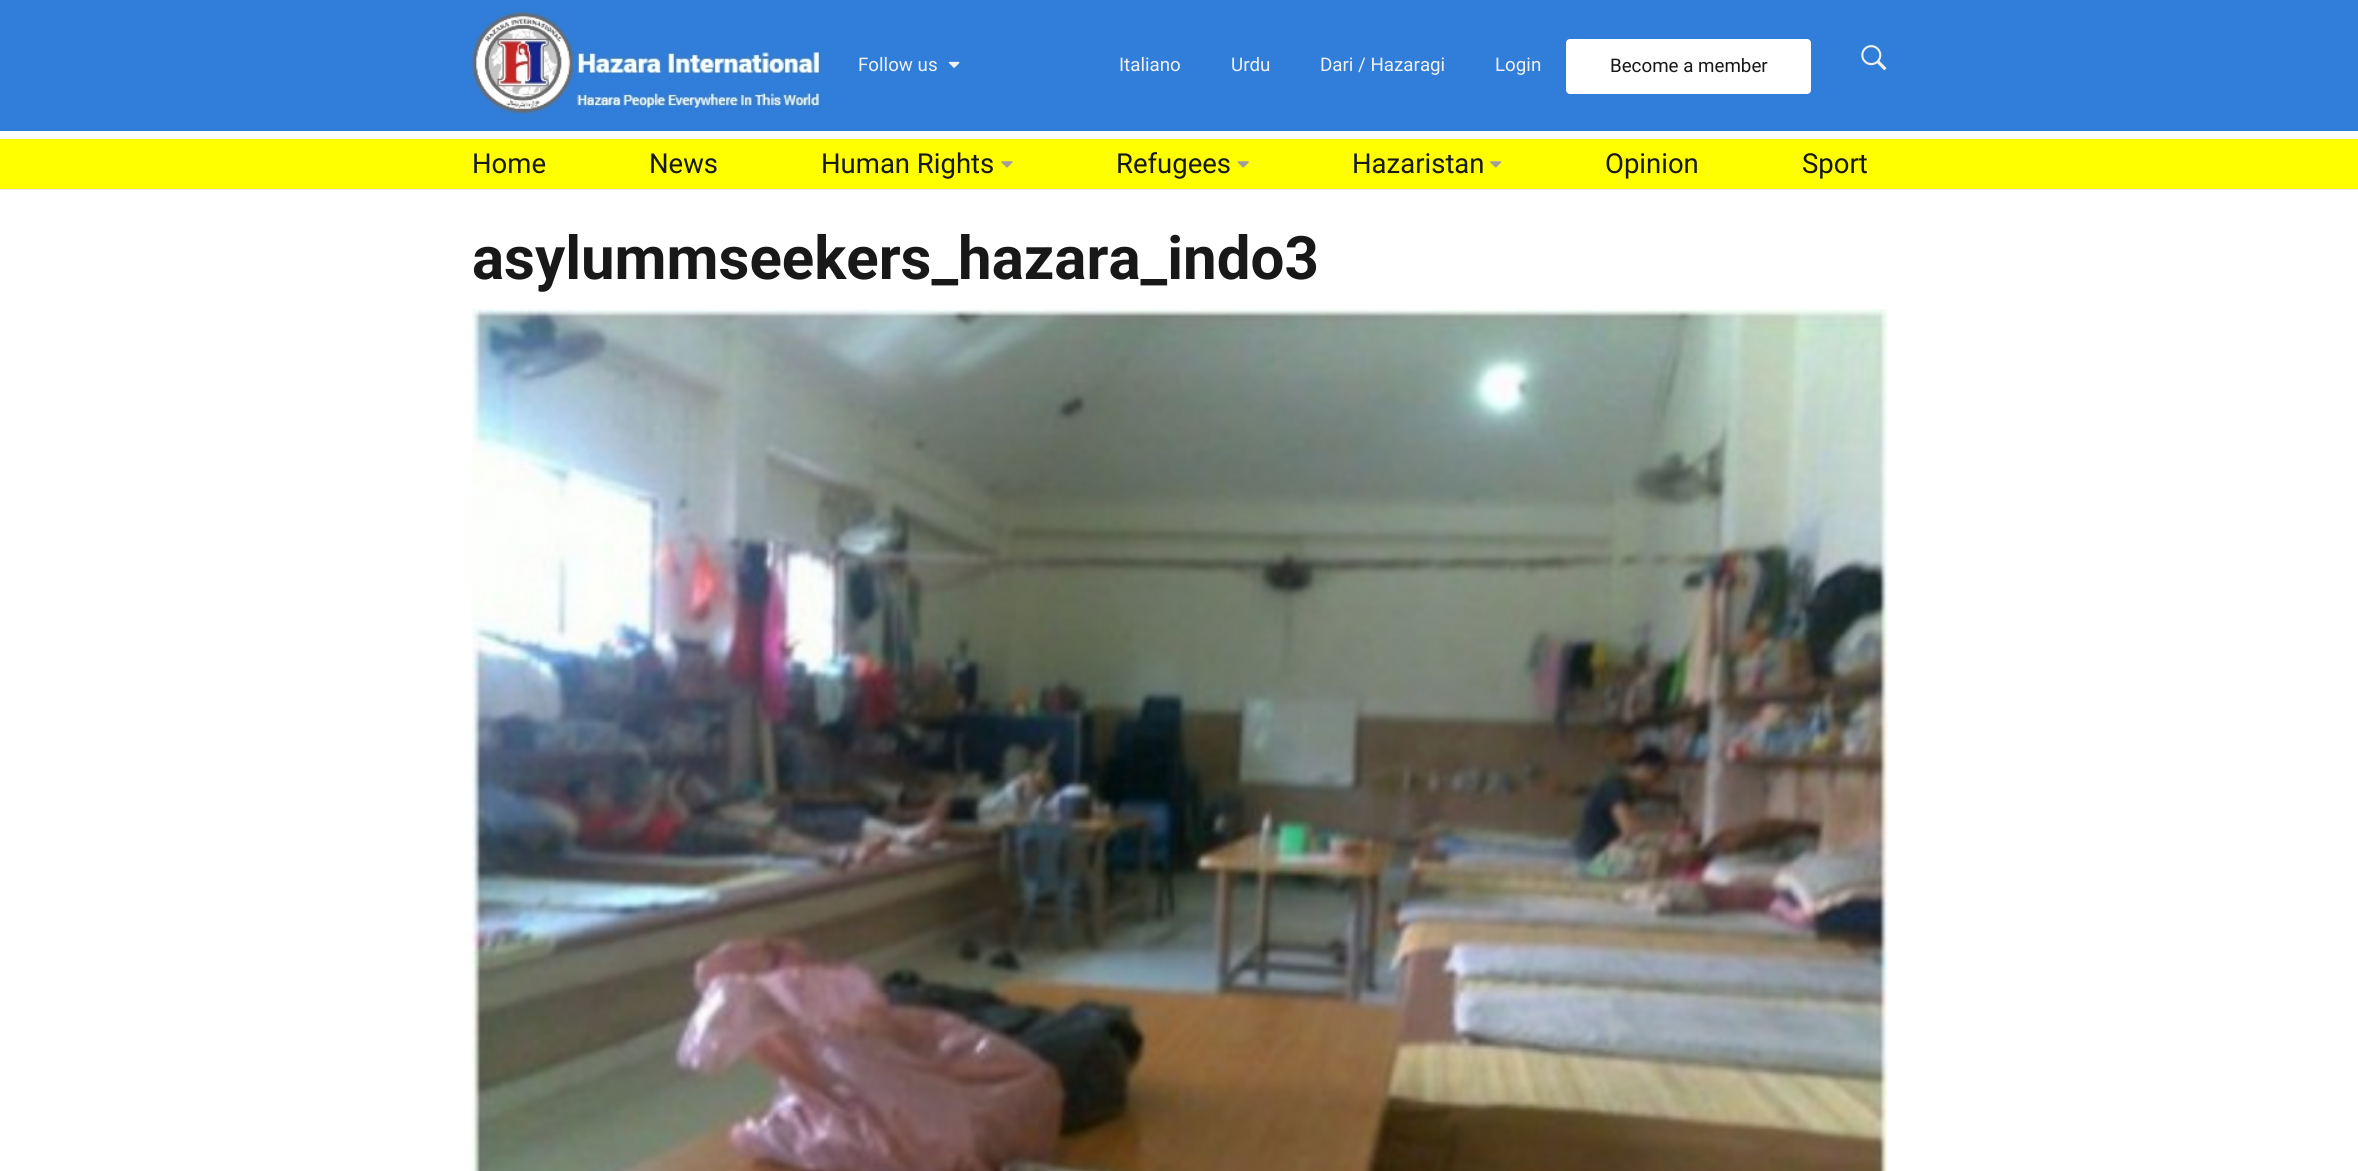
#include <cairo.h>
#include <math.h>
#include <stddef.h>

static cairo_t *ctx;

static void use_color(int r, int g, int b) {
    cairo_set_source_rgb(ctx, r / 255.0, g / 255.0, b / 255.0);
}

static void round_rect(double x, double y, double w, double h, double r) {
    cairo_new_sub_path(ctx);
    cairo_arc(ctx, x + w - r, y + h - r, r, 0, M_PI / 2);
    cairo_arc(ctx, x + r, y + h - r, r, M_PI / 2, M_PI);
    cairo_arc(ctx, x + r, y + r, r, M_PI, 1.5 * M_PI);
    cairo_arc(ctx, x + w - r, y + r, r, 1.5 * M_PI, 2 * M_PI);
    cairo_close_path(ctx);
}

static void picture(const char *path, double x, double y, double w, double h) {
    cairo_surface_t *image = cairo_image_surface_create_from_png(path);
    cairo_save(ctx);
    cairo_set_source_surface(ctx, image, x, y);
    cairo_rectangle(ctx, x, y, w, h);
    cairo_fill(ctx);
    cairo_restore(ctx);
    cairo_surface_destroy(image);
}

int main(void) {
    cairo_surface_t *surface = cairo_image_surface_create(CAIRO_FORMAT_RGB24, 2358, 1171);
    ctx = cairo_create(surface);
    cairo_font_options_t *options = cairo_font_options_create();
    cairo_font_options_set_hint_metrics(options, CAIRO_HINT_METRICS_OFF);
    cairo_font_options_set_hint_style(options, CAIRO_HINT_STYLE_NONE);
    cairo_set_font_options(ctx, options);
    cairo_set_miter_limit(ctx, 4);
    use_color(255, 255, 255);
    cairo_paint(ctx);
    use_color(48, 126, 217);
    cairo_rectangle(ctx, 0, 0, 2358, 131);
    cairo_fill(ctx);
    picture("img1.png", 472, 12, 349, 102);
    cairo_select_font_face(ctx, "Roboto", CAIRO_FONT_SLANT_NORMAL, CAIRO_FONT_WEIGHT_NORMAL);
    cairo_set_font_size(ctx, 18.75);
    use_color(241, 241, 241);
    cairo_move_to(ctx, 858, 71);
    cairo_show_text(ctx, "Follow us");
    picture("img2.png", 948, 61, 12, 7);
    cairo_move_to(ctx, 1119, 71);
    cairo_show_text(ctx, "Italiano");
    cairo_move_to(ctx, 1231, 71);
    cairo_show_text(ctx, "Urdu");
    cairo_move_to(ctx, 1320, 71);
    cairo_show_text(ctx, "Dari / Hazaragi");
    cairo_move_to(ctx, 1495, 71);
    cairo_show_text(ctx, "Login");
    use_color(255, 255, 255);
    round_rect(1566, 39, 245, 55, 4);
    cairo_fill(ctx);
    use_color(24, 24, 24);
    cairo_move_to(ctx, 1610, 72);
    cairo_show_text(ctx, "Become a member");
    picture("img3.png", 1861, 45, 26, 26);
    use_color(255, 255, 0);
    cairo_rectangle(ctx, 0, 139, 2358, 50);
    cairo_fill(ctx);
    use_color(234, 234, 234);
    cairo_rectangle(ctx, 0, 189, 2358, 1);
    cairo_fill(ctx);
    cairo_set_font_size(ctx, 27.5);
    use_color(24, 24, 24);
    cairo_move_to(ctx, 472, 173);
    cairo_show_text(ctx, "Home");
    cairo_move_to(ctx, 649, 173);
    cairo_show_text(ctx, "News");
    cairo_move_to(ctx, 821, 173);
    cairo_show_text(ctx, "Human Rights");
    picture("img4.png", 1001, 161, 12, 7);
    cairo_move_to(ctx, 1116, 173);
    cairo_show_text(ctx, "Refugees");
    picture("img5.png", 1237, 161, 12, 7);
    cairo_move_to(ctx, 1352, 173);
    cairo_show_text(ctx, "Hazaristan");
    picture("img6.png", 1490, 161, 12, 7);
    cairo_move_to(ctx, 1605, 173);
    cairo_show_text(ctx, "Opinion");
    cairo_move_to(ctx, 1802, 173);
    cairo_show_text(ctx, "Sport");
    cairo_select_font_face(ctx, "Roboto", CAIRO_FONT_SLANT_NORMAL, CAIRO_FONT_WEIGHT_BOLD);
    cairo_set_font_size(ctx, 60);
    cairo_move_to(ctx, 472, 279);
    cairo_show_text(ctx, "asylummseekers_hazara_indo3");
    picture("img7.png", 472, 309, 1416, 862);
    cairo_surface_write_to_png(surface, "result.png");
    cairo_font_options_destroy(options);
    cairo_destroy(ctx);
    cairo_surface_destroy(surface);
    return 0;
}
